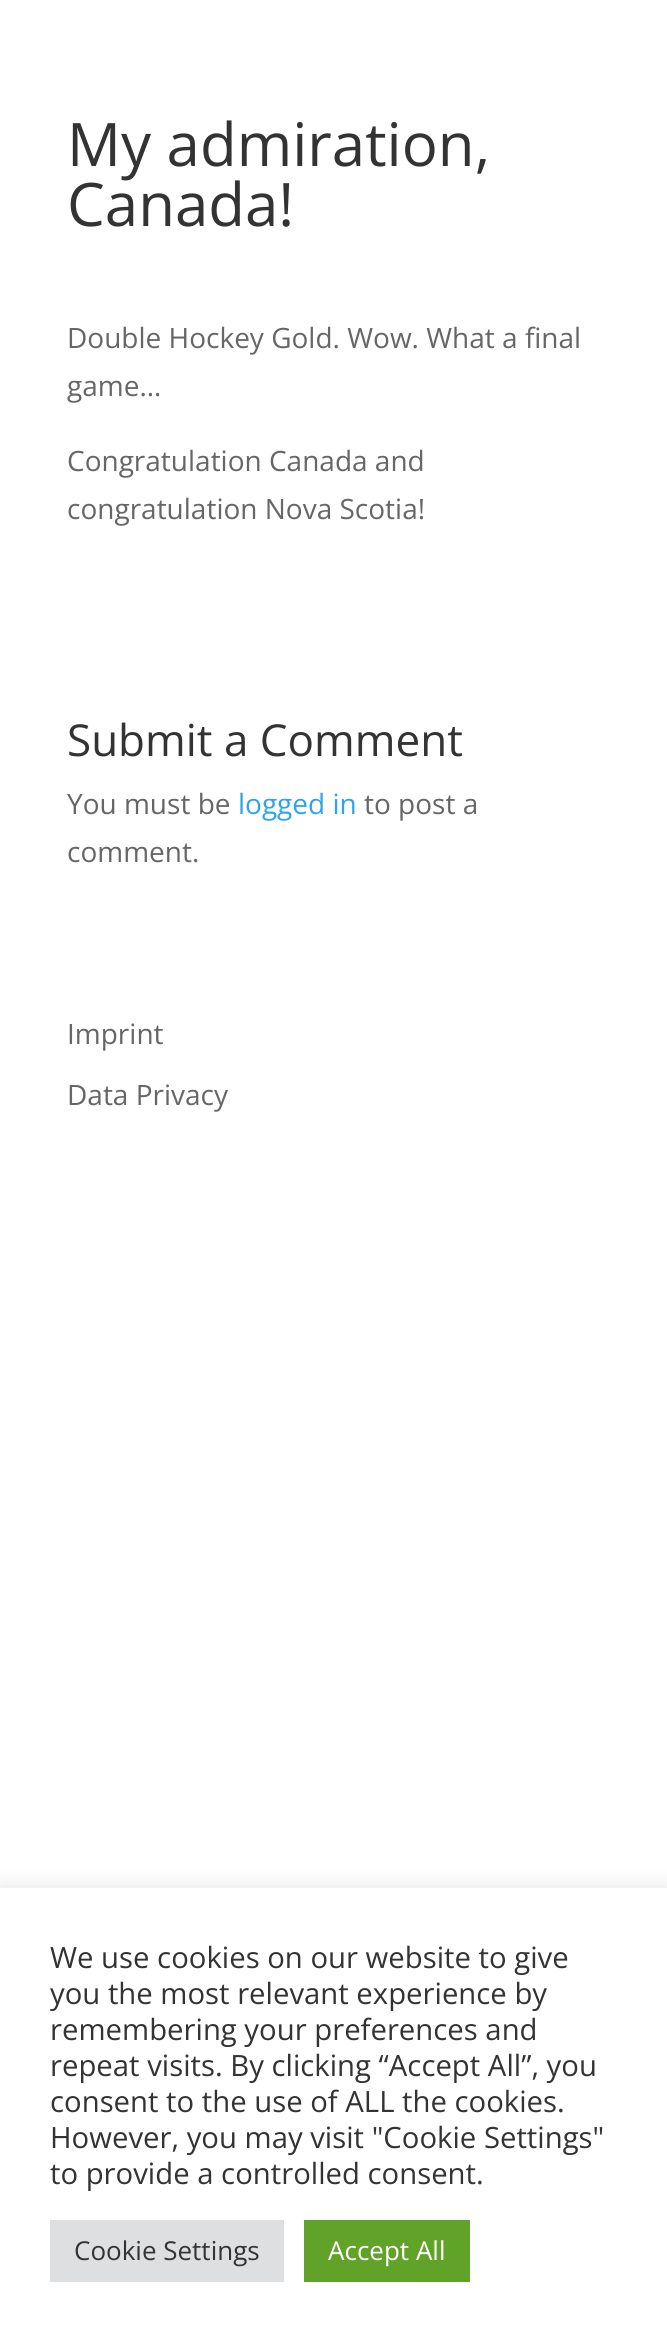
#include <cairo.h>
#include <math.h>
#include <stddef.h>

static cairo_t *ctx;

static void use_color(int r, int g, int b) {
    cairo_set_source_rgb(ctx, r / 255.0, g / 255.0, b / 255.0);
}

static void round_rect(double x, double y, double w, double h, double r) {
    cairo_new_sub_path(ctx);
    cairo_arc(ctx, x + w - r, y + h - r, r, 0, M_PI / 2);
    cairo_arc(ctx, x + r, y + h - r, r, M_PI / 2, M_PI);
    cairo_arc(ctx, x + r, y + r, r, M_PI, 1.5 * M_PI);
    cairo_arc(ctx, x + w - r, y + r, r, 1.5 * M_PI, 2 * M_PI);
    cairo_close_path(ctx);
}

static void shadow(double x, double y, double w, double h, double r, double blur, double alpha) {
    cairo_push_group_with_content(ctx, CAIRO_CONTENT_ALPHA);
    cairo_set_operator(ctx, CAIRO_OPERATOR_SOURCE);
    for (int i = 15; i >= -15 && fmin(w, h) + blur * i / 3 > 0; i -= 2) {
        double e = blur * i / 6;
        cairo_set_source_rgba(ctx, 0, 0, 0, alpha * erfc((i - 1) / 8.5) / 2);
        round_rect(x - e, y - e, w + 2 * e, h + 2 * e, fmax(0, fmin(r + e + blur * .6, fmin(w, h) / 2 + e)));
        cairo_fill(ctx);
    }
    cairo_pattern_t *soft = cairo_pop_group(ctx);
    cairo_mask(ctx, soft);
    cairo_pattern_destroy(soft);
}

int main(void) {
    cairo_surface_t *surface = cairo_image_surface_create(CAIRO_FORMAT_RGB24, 667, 2342);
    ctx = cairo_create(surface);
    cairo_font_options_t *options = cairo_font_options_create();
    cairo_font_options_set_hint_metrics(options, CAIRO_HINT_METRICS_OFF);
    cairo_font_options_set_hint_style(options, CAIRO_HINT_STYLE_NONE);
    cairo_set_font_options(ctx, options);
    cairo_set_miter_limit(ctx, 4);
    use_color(255, 255, 255);
    cairo_paint(ctx);
    cairo_select_font_face(ctx, "Open Sans", CAIRO_FONT_SLANT_NORMAL, CAIRO_FONT_WEIGHT_NORMAL);
    cairo_set_font_size(ctx, 60);
    use_color(51, 51, 51);
    cairo_move_to(ctx, 67, 166);
    cairo_show_text(ctx, "My admiration,");
    cairo_move_to(ctx, 67, 226);
    cairo_show_text(ctx, "Canada!");
    cairo_set_font_size(ctx, 28);
    use_color(102, 102, 102);
    cairo_move_to(ctx, 67, 348);
    cairo_show_text(ctx, "Double Hockey Gold. Wow. What a final");
    cairo_move_to(ctx, 67, 396);
    cairo_show_text(ctx, "game…");
    cairo_move_to(ctx, 67, 471);
    cairo_show_text(ctx, "Congratulation Canada and");
    cairo_move_to(ctx, 67, 519);
    cairo_show_text(ctx, "congratulation Nova Scotia!");
    cairo_set_font_size(ctx, 44);
    use_color(51, 51, 51);
    cairo_move_to(ctx, 67, 756);
    cairo_show_text(ctx, "Submit a Comment");
    cairo_set_font_size(ctx, 28);
    use_color(102, 102, 102);
    cairo_move_to(ctx, 67, 814);
    cairo_show_text(ctx, "You must be");
    use_color(46, 163, 242);
    cairo_move_to(ctx, 238, 814);
    cairo_show_text(ctx, "logged in");
    use_color(102, 102, 102);
    cairo_move_to(ctx, 364, 814);
    cairo_show_text(ctx, "to post a");
    cairo_move_to(ctx, 67, 862);
    cairo_show_text(ctx, "comment.");
    cairo_move_to(ctx, 67, 1044);
    cairo_show_text(ctx, "Imprint");
    cairo_move_to(ctx, 67, 1105);
    cairo_show_text(ctx, "Data Privacy");
    cairo_save(ctx);
    cairo_rectangle(ctx, 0, 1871, 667, 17);
    cairo_clip(ctx);
    use_color(172, 171, 171);
    shadow(0, 1886, 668, 454, 0, 10, 0.3);
    cairo_restore(ctx);
    cairo_set_font_size(ctx, 29.3);
    use_color(51, 51, 51);
    cairo_move_to(ctx, 50, 1968);
    cairo_show_text(ctx, "We use cookies on our website to give");
    cairo_move_to(ctx, 50, 2004);
    cairo_show_text(ctx, "you the most relevant experience by");
    cairo_move_to(ctx, 50, 2040);
    cairo_show_text(ctx, "remembering your preferences and");
    cairo_move_to(ctx, 50, 2076);
    cairo_show_text(ctx, "repeat visits. By clicking “Accept All”, you");
    cairo_move_to(ctx, 50, 2112);
    cairo_show_text(ctx, "consent to the use of ALL the cookies.");
    cairo_move_to(ctx, 50, 2148);
    cairo_show_text(ctx, "However, you may visit \"Cookie Settings\"");
    cairo_move_to(ctx, 50, 2184);
    cairo_show_text(ctx, "to provide a controlled consent.");
    use_color(222, 223, 224);
    cairo_rectangle(ctx, 50, 2220, 234, 62);
    cairo_fill(ctx);
    cairo_set_font_size(ctx, 26);
    use_color(51, 51, 51);
    cairo_move_to(ctx, 74, 2260);
    cairo_show_text(ctx, "Cookie Settings");
    use_color(97, 162, 41);
    cairo_rectangle(ctx, 304, 2220, 166, 62);
    cairo_fill(ctx);
    use_color(255, 255, 255);
    cairo_move_to(ctx, 328, 2260);
    cairo_show_text(ctx, "Accept All");
    cairo_surface_write_to_png(surface, "result.png");
    cairo_font_options_destroy(options);
    cairo_destroy(ctx);
    cairo_surface_destroy(surface);
    return 0;
}
